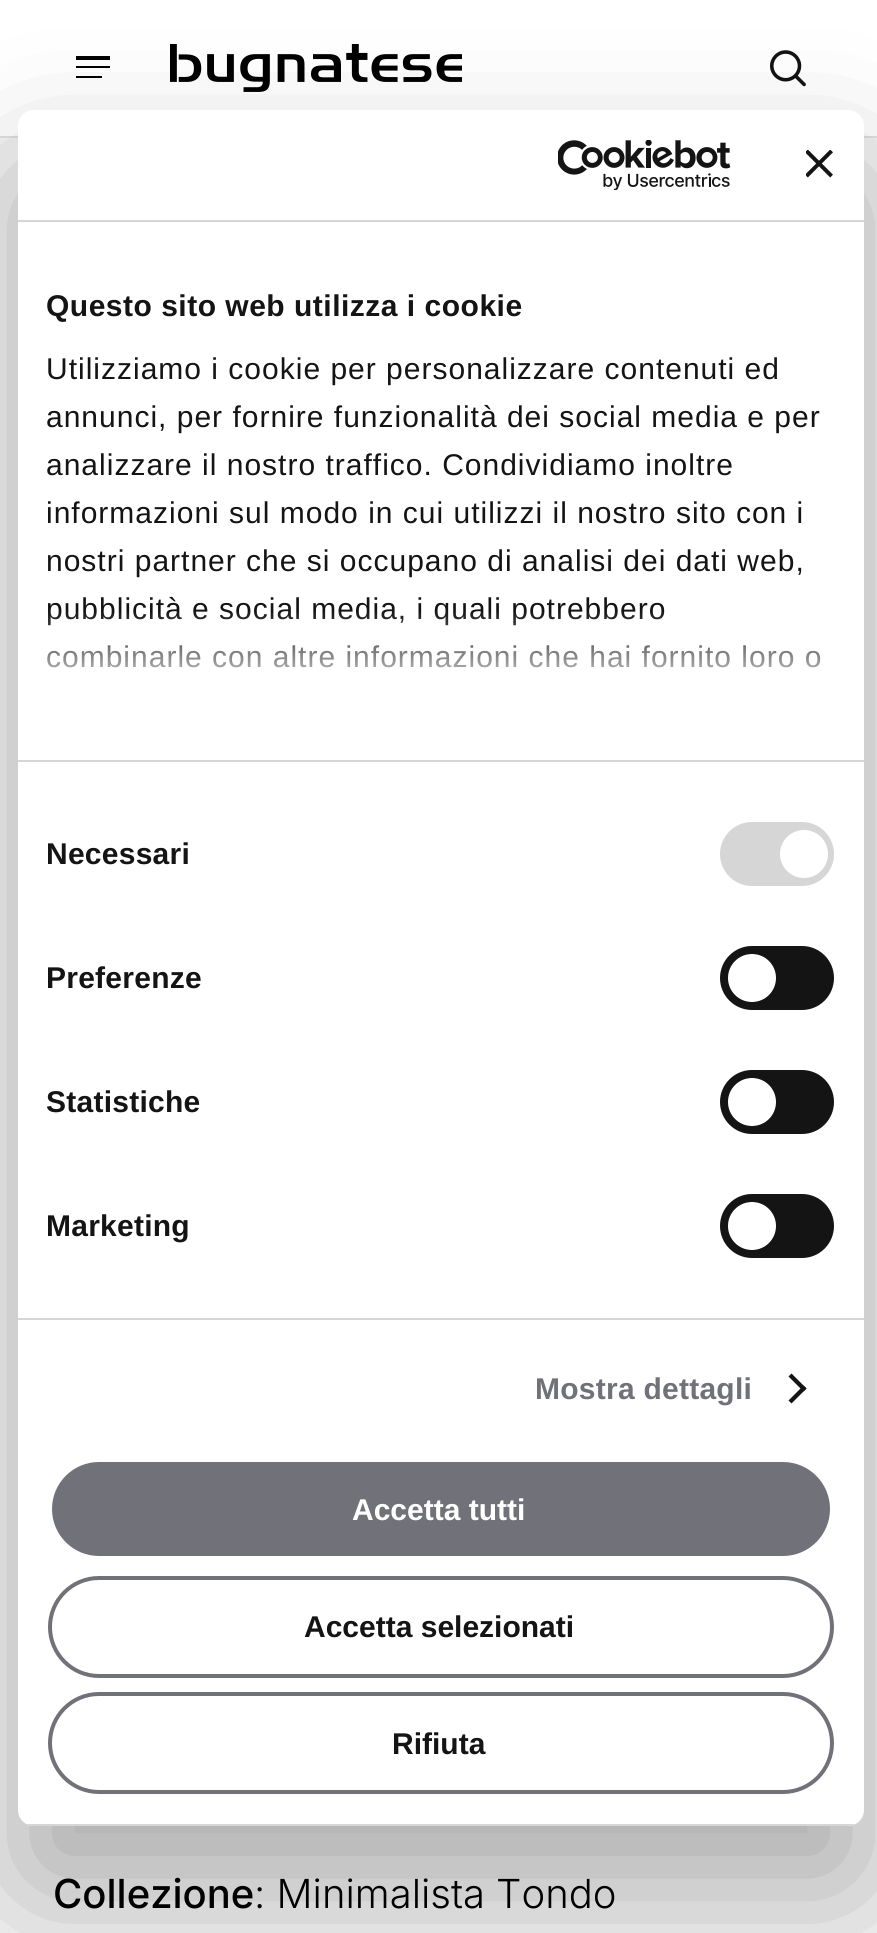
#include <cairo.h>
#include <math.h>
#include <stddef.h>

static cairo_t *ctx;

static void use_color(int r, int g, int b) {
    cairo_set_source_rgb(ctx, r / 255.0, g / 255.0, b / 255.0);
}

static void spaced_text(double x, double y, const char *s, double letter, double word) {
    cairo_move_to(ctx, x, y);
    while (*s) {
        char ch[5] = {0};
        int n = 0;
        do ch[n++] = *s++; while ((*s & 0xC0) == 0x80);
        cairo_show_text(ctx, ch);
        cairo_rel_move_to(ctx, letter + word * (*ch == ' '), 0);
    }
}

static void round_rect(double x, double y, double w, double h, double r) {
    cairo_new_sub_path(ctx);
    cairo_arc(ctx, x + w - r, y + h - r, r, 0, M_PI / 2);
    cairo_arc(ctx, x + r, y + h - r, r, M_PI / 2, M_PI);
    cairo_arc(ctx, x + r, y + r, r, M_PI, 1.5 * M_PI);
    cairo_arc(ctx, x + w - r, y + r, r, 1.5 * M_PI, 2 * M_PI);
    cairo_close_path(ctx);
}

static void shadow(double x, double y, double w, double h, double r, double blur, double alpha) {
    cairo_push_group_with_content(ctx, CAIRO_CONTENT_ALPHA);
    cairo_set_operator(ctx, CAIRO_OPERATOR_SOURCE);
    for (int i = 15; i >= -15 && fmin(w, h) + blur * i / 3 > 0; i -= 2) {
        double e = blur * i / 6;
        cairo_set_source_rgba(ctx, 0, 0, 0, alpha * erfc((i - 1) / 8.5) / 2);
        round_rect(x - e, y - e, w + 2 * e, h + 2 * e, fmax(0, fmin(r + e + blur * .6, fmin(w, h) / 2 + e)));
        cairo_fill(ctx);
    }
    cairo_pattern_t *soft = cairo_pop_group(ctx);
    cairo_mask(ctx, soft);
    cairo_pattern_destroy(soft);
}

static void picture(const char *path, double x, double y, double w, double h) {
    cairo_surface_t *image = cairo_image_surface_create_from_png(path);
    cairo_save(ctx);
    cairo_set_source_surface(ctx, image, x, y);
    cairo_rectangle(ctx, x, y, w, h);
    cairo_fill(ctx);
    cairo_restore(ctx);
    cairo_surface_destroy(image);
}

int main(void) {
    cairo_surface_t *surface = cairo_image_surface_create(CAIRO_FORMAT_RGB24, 877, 1933);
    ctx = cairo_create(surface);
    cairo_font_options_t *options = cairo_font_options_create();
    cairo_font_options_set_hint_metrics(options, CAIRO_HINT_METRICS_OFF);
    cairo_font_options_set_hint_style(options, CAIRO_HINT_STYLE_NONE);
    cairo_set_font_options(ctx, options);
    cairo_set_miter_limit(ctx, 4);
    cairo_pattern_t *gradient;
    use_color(244, 244, 245);
    cairo_paint(ctx);
    use_color(255, 255, 255);
    cairo_rectangle(ctx, 0, 0, 877, 136);
    cairo_fill(ctx);
    use_color(224, 224, 225);
    cairo_rectangle(ctx, 0, 136, 877, 2);
    cairo_fill(ctx);
    use_color(0, 0, 0);
    cairo_rectangle(ctx, 76, 56, 34, 4);
    cairo_fill(ctx);
    cairo_rectangle(ctx, 76, 76, 26, 2);
    cairo_fill(ctx);
    cairo_rectangle(ctx, 76, 66, 34, 2);
    cairo_fill(ctx);
    picture("img3.png", 170, 44, 292, 48);
    picture("img4.png", 770, 50, 36, 37);
    use_color(0, 0, 0);
    shadow(18, 174, 846, 1716, 16, 68, 0.3);
    use_color(255, 255, 255);
    round_rect(18, 110, 846, 1716, 16);
    cairo_fill(ctx);
    use_color(214, 214, 214);
    cairo_rectangle(ctx, 18, 220, 846, 2);
    cairo_fill(ctx);
    picture("img1.png", 558, 140, 173, 50);
    picture("img2.png", 806, 150, 27, 28);
    cairo_rectangle(ctx, 18, 760, 846, 2);
    cairo_fill(ctx);
    cairo_select_font_face(ctx, "Liberation Sans", CAIRO_FONT_SLANT_NORMAL, CAIRO_FONT_WEIGHT_BOLD);
    cairo_set_font_size(ctx, 30);
    use_color(20, 20, 20);
    spaced_text(46, 316, "Questo sito web utilizza i cookie", 0.5, 0);
    cairo_select_font_face(ctx, "Liberation Sans", CAIRO_FONT_SLANT_NORMAL, CAIRO_FONT_WEIGHT_NORMAL);
    spaced_text(46, 379, "Utilizziamo i cookie per personalizzare contenuti ed", 1, 0);
    spaced_text(46, 427, "annunci, per fornire funzionalità dei social media e per", 1, 0);
    spaced_text(46, 475, "analizzare il nostro traffico. Condividiamo inoltre", 1, 0);
    spaced_text(46, 523, "informazioni sul modo in cui utilizzi il nostro sito con i", 1, 0);
    spaced_text(46, 571, "nostri partner che si occupano di analisi dei dati web,", 1, 0);
    spaced_text(46, 619, "pubblicità e social media, i quali potrebbero", 1, 0);
    spaced_text(46, 667, "combinarle con altre informazioni che hai fornito loro o", 1, 0);
    gradient = cairo_pattern_create_linear(427, 760, 427, 610);
    cairo_pattern_add_color_stop_rgba(gradient, 0, 1, 1, 1, 1);
    cairo_pattern_add_color_stop_rgba(gradient, 0.5, 1, 1, 1, 0.8);
    cairo_pattern_add_color_stop_rgba(gradient, 1, 1, 1, 1, 0);
    cairo_set_source(ctx, gradient);
    cairo_pattern_destroy(gradient);
    cairo_rectangle(ctx, 47, 612, 774, 56);
    cairo_fill(ctx);
    use_color(214, 214, 214);
    cairo_rectangle(ctx, 18, 1318, 846, 2);
    cairo_fill(ctx);
    cairo_select_font_face(ctx, "Liberation Sans", CAIRO_FONT_SLANT_NORMAL, CAIRO_FONT_WEIGHT_BOLD);
    use_color(20, 20, 20);
    spaced_text(46, 864, "Necessari", 0.25, 0);
    use_color(214, 214, 214);
    round_rect(720, 822, 114, 64, 32);
    cairo_fill(ctx);
    use_color(255, 255, 255);
    cairo_arc(ctx, 804, 854, 24, 0, 2 * M_PI);
    cairo_fill(ctx);
    use_color(20, 20, 20);
    spaced_text(46, 988, "Preferenze", 0.25, 0);
    round_rect(720, 946, 114, 64, 32);
    cairo_fill(ctx);
    use_color(255, 255, 255);
    cairo_arc(ctx, 752, 978, 24, 0, 2 * M_PI);
    cairo_fill(ctx);
    use_color(20, 20, 20);
    spaced_text(46, 1112, "Statistiche", 0.25, 0);
    round_rect(720, 1070, 114, 64, 32);
    cairo_fill(ctx);
    use_color(255, 255, 255);
    cairo_arc(ctx, 752, 1102, 24, 0, 2 * M_PI);
    cairo_fill(ctx);
    use_color(20, 20, 20);
    spaced_text(46, 1236, "Marketing", 0.25, 0);
    round_rect(720, 1194, 114, 64, 32);
    cairo_fill(ctx);
    use_color(255, 255, 255);
    cairo_arc(ctx, 752, 1226, 24, 0, 2 * M_PI);
    cairo_fill(ctx);
    use_color(113, 113, 122);
    spaced_text(535, 1399, "Mostra dettagli", 0.25, 0);
    use_color(20, 20, 20);
    cairo_new_path(ctx);
    cairo_move_to(ctx, 791.5, 1373.5);
    cairo_line_to(ctx, 806.5, 1388.5);
    cairo_line_to(ctx, 803.5, 1391.5);
    cairo_line_to(ctx, 788.5, 1376.5);
    cairo_close_path(ctx);
    cairo_fill(ctx);
    cairo_new_path(ctx);
    cairo_move_to(ctx, 803.5, 1385.5);
    cairo_line_to(ctx, 806.5, 1388.5);
    cairo_line_to(ctx, 791.5, 1403.5);
    cairo_line_to(ctx, 788.5, 1400.5);
    cairo_close_path(ctx);
    cairo_fill(ctx);
    cairo_save(ctx);
    round_rect(18, 110, 846, 1716, 16);
    cairo_clip(ctx);
    use_color(214, 214, 214);
    cairo_rectangle(ctx, 18, 1824, 846, 2);
    cairo_fill(ctx);
    cairo_restore(ctx);
    use_color(113, 113, 122);
    round_rect(50, 1460, 782, 98, 49);
    cairo_fill_preserve(ctx);
    use_color(255, 255, 255);
    cairo_set_line_width(ctx, 4);
    cairo_stroke(ctx);
    cairo_move_to(ctx, 352, 1520);
    cairo_show_text(ctx, "Accetta tutti");
    round_rect(50, 1578, 782, 98, 49);
    use_color(113, 113, 122);
    cairo_stroke(ctx);
    use_color(20, 20, 20);
    cairo_move_to(ctx, 304, 1637);
    cairo_show_text(ctx, "Accetta selezionati");
    round_rect(50, 1694, 782, 98, 49);
    use_color(113, 113, 122);
    cairo_stroke(ctx);
    use_color(20, 20, 20);
    cairo_move_to(ctx, 392, 1754);
    cairo_show_text(ctx, "Rifiuta");
    cairo_select_font_face(ctx, "Inter Medium", CAIRO_FONT_SLANT_NORMAL, CAIRO_FONT_WEIGHT_NORMAL);
    cairo_set_font_size(ctx, 40);
    use_color(0, 0, 0);
    cairo_move_to(ctx, 53, 1908);
    cairo_show_text(ctx, "Collezione");
    cairo_select_font_face(ctx, "Inter Light", CAIRO_FONT_SLANT_NORMAL, CAIRO_FONT_WEIGHT_NORMAL);
    cairo_move_to(ctx, 254, 1908);
    cairo_show_text(ctx, ": Minimalista Tondo");
    cairo_surface_write_to_png(surface, "result.png");
    cairo_font_options_destroy(options);
    cairo_destroy(ctx);
    cairo_surface_destroy(surface);
    return 0;
}
